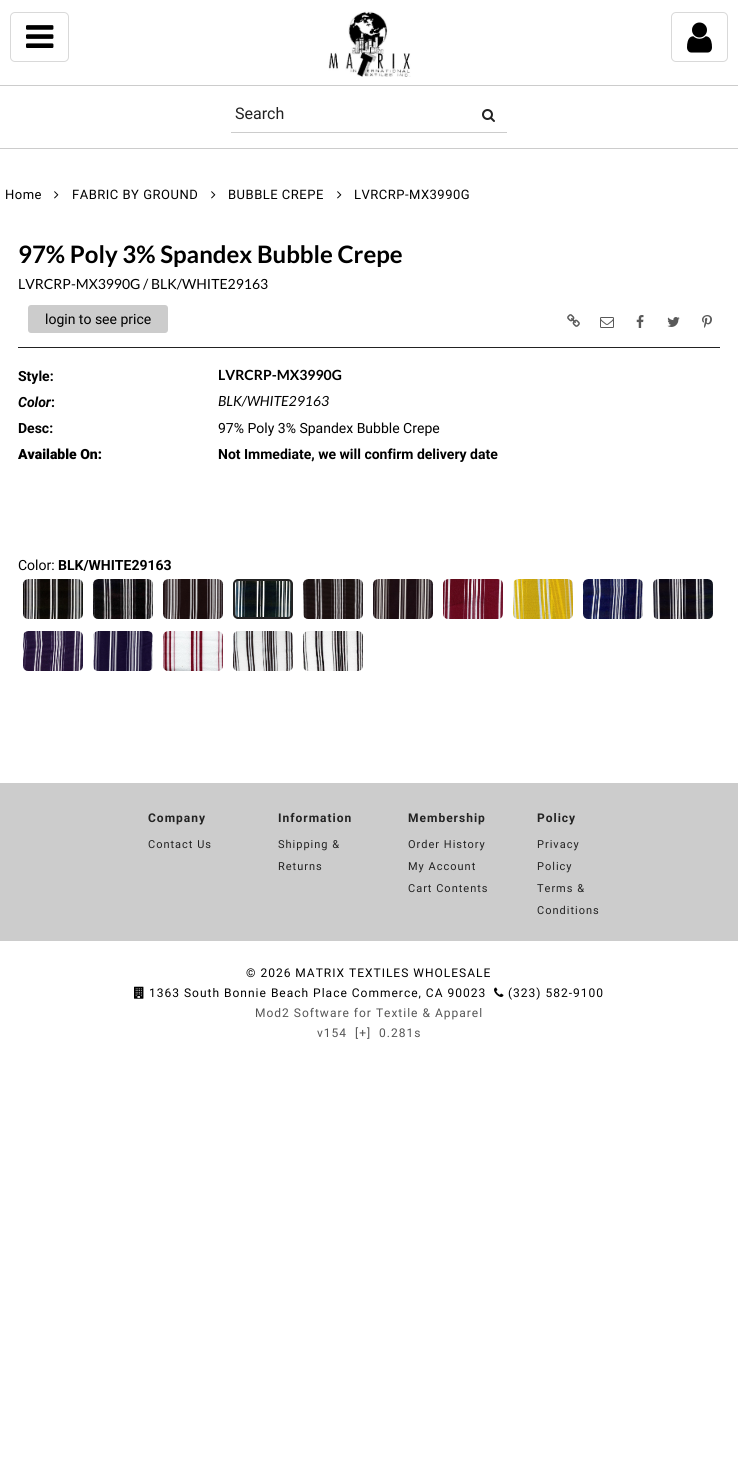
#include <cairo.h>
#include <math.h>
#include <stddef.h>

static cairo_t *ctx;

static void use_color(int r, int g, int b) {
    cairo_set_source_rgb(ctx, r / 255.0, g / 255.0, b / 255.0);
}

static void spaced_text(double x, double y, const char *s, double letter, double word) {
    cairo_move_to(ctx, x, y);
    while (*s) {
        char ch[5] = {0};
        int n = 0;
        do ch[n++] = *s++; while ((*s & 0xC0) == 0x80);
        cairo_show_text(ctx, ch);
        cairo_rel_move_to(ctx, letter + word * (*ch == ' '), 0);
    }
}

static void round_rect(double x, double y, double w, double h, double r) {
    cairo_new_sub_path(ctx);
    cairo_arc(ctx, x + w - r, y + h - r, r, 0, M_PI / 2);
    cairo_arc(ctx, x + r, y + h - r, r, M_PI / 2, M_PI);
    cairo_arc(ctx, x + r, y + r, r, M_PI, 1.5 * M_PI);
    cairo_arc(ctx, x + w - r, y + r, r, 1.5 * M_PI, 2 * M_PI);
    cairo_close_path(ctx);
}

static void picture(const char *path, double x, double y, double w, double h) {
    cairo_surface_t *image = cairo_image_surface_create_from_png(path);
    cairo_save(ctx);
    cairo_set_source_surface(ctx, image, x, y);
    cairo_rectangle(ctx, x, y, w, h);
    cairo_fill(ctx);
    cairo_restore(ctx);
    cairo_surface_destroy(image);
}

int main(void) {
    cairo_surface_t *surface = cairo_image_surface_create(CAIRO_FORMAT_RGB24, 738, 1475);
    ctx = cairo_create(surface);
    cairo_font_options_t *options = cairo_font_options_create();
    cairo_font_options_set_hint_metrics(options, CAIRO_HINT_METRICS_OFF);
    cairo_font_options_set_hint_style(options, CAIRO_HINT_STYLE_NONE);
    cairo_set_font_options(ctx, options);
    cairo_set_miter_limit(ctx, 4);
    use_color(255, 255, 255);
    cairo_paint(ctx);
    round_rect(10.5, 12.5, 58, 49, 4.5);
    use_color(217, 217, 217);
    cairo_set_line_width(ctx, 1);
    cairo_stroke(ctx);
    picture("img1.png", 26, 25, 28, 23);
    picture("img2.png", 328, 11, 83, 66);
    round_rect(671.5, 12.5, 56, 49, 4.5);
    cairo_stroke(ctx);
    picture("img3.png", 687, 22, 25, 31);
    use_color(204, 204, 204);
    cairo_rectangle(ctx, 0, 85, 738, 1);
    cairo_fill(ctx);
    cairo_rectangle(ctx, 0, 148, 738, 1);
    cairo_fill(ctx);
    cairo_rectangle(ctx, 231, 132, 276, 1);
    cairo_fill(ctx);
    cairo_select_font_face(ctx, "Roboto", CAIRO_FONT_SLANT_NORMAL, CAIRO_FONT_WEIGHT_NORMAL);
    cairo_set_font_size(ctx, 16);
    use_color(34, 34, 34);
    cairo_move_to(ctx, 235, 119);
    cairo_show_text(ctx, "Search");
    picture("img4.png", 482, 109, 13, 13);
    cairo_set_font_size(ctx, 13);
    use_color(0, 0, 0);
    spaced_text(5, 199, "Home", 0.5, 0);
    picture("img5.png", 54, 191, 5, 8);
    spaced_text(72, 199, "FABRIC BY GROUND", 0.5, 0);
    picture("img5.png", 211, 191, 5, 8);
    spaced_text(228, 199, "BUBBLE CREPE", 0.5, 0);
    picture("img5.png", 337, 191, 5, 8);
    spaced_text(354, 199, "LVRCRP-MX3990G", 0.5, 0);
    cairo_select_font_face(ctx, "Lato", CAIRO_FONT_SLANT_NORMAL, CAIRO_FONT_WEIGHT_BOLD);
    cairo_set_font_size(ctx, 24);
    cairo_move_to(ctx, 18, 263);
    cairo_show_text(ctx, "97% Poly 3% Spandex Bubble Crepe");
    cairo_select_font_face(ctx, "Lato", CAIRO_FONT_SLANT_NORMAL, CAIRO_FONT_WEIGHT_NORMAL);
    cairo_set_font_size(ctx, 14);
    cairo_move_to(ctx, 18, 289);
    cairo_show_text(ctx, "LVRCRP-MX3990G / BLK/WHITE29163");
    use_color(204, 204, 204);
    round_rect(28, 305, 140, 28, 3);
    cairo_fill(ctx);
    cairo_select_font_face(ctx, "Roboto", CAIRO_FONT_SLANT_NORMAL, CAIRO_FONT_WEIGHT_NORMAL);
    use_color(0, 0, 0);
    cairo_move_to(ctx, 45, 324);
    cairo_show_text(ctx, "login to see price");
    picture("img6.png", 567, 314, 13, 13);
    picture("img7.png", 600, 317, 14, 11);
    picture("img8.png", 636, 315, 8, 13);
    picture("img9.png", 667, 317, 13, 10);
    picture("img10.png", 702, 315, 10, 13);
    use_color(34, 34, 34);
    cairo_rectangle(ctx, 18, 347, 702, 1);
    cairo_fill(ctx);
    cairo_select_font_face(ctx, "Roboto", CAIRO_FONT_SLANT_NORMAL, CAIRO_FONT_WEIGHT_BOLD);
    use_color(0, 0, 0);
    cairo_move_to(ctx, 18, 381);
    cairo_show_text(ctx, "Style:");
    cairo_select_font_face(ctx, "Lato", CAIRO_FONT_SLANT_NORMAL, CAIRO_FONT_WEIGHT_BOLD);
    cairo_move_to(ctx, 218, 380);
    cairo_show_text(ctx, "LVRCRP-MX3990G");
    cairo_select_font_face(ctx, "Roboto", CAIRO_FONT_SLANT_ITALIC, CAIRO_FONT_WEIGHT_BOLD);
    cairo_move_to(ctx, 18, 407);
    cairo_show_text(ctx, "Color");
    cairo_select_font_face(ctx, "Roboto", CAIRO_FONT_SLANT_NORMAL, CAIRO_FONT_WEIGHT_BOLD);
    cairo_move_to(ctx, 51, 407);
    cairo_show_text(ctx, ":");
    cairo_select_font_face(ctx, "Lato", CAIRO_FONT_SLANT_ITALIC, CAIRO_FONT_WEIGHT_NORMAL);
    cairo_move_to(ctx, 218, 406);
    cairo_show_text(ctx, "BLK/WHITE29163");
    cairo_select_font_face(ctx, "Roboto", CAIRO_FONT_SLANT_NORMAL, CAIRO_FONT_WEIGHT_BOLD);
    cairo_move_to(ctx, 18, 433);
    cairo_show_text(ctx, "Desc:");
    cairo_select_font_face(ctx, "Roboto", CAIRO_FONT_SLANT_NORMAL, CAIRO_FONT_WEIGHT_NORMAL);
    cairo_move_to(ctx, 218, 433);
    cairo_show_text(ctx, "97% Poly 3% Spandex Bubble Crepe");
    cairo_select_font_face(ctx, "Roboto Black", CAIRO_FONT_SLANT_NORMAL, CAIRO_FONT_WEIGHT_NORMAL);
    cairo_move_to(ctx, 18, 459);
    cairo_show_text(ctx, "Available On:");
    cairo_select_font_face(ctx, "Roboto", CAIRO_FONT_SLANT_NORMAL, CAIRO_FONT_WEIGHT_BOLD);
    cairo_move_to(ctx, 218, 459);
    cairo_show_text(ctx, "Not Immediate, we will confirm delivery date");
    cairo_select_font_face(ctx, "Roboto", CAIRO_FONT_SLANT_NORMAL, CAIRO_FONT_WEIGHT_NORMAL);
    cairo_move_to(ctx, 18, 570);
    cairo_show_text(ctx, "Color:");
    cairo_select_font_face(ctx, "Roboto", CAIRO_FONT_SLANT_NORMAL, CAIRO_FONT_WEIGHT_BOLD);
    cairo_move_to(ctx, 58, 570);
    cairo_show_text(ctx, "BLK/WHITE29163");
    picture("img11.png", 22, 579, 62, 40);
    picture("img12.png", 92, 579, 62, 40);
    picture("img13.png", 162, 579, 62, 40);
    picture("img14.png", 235, 581, 56, 36);
    round_rect(234, 580, 58, 38, 4);
    use_color(34, 34, 34);
    cairo_set_line_width(ctx, 2);
    cairo_stroke(ctx);
    picture("img15.png", 302, 579, 62, 40);
    picture("img16.png", 372, 579, 62, 40);
    picture("img17.png", 443, 579, 60, 40);
    picture("img18.png", 513, 579, 60, 40);
    picture("img19.png", 582, 579, 61, 40);
    picture("img20.png", 653, 579, 60, 40);
    picture("img21.png", 23, 631, 60, 40);
    picture("img22.png", 93, 631, 60, 40);
    picture("img23.png", 162, 631, 62, 40);
    picture("img24.png", 233, 631, 60, 40);
    picture("img25.png", 302, 631, 62, 40);
    use_color(204, 204, 204);
    cairo_rectangle(ctx, 0, 783, 738, 158);
    cairo_fill(ctx);
    cairo_set_font_size(ctx, 12);
    use_color(34, 34, 34);
    spaced_text(148, 822, "Company", 1, 0);
    cairo_select_font_face(ctx, "Roboto", CAIRO_FONT_SLANT_NORMAL, CAIRO_FONT_WEIGHT_NORMAL);
    cairo_set_font_size(ctx, 11);
    spaced_text(148, 848, "Contact Us", 1, 0);
    cairo_select_font_face(ctx, "Roboto", CAIRO_FONT_SLANT_NORMAL, CAIRO_FONT_WEIGHT_BOLD);
    cairo_set_font_size(ctx, 12);
    spaced_text(278, 822, "Information", 1, 0);
    cairo_select_font_face(ctx, "Roboto", CAIRO_FONT_SLANT_NORMAL, CAIRO_FONT_WEIGHT_NORMAL);
    cairo_set_font_size(ctx, 11);
    spaced_text(278, 848, "Shipping &", 1, 0);
    spaced_text(278, 870, "Returns", 1, 0);
    cairo_select_font_face(ctx, "Roboto", CAIRO_FONT_SLANT_NORMAL, CAIRO_FONT_WEIGHT_BOLD);
    cairo_set_font_size(ctx, 12);
    spaced_text(408, 822, "Membership", 1, 0);
    cairo_select_font_face(ctx, "Roboto", CAIRO_FONT_SLANT_NORMAL, CAIRO_FONT_WEIGHT_NORMAL);
    cairo_set_font_size(ctx, 11);
    spaced_text(408, 848, "Order History", 1, 0);
    spaced_text(408, 870, "My Account", 1, 0);
    spaced_text(408, 892, "Cart Contents", 1, 0);
    cairo_select_font_face(ctx, "Roboto", CAIRO_FONT_SLANT_NORMAL, CAIRO_FONT_WEIGHT_BOLD);
    cairo_set_font_size(ctx, 12);
    spaced_text(537, 822, "Policy", 1, 0);
    cairo_select_font_face(ctx, "Roboto", CAIRO_FONT_SLANT_NORMAL, CAIRO_FONT_WEIGHT_NORMAL);
    cairo_set_font_size(ctx, 11);
    spaced_text(537, 848, "Privacy", 1, 0);
    spaced_text(537, 870, "Policy", 1, 0);
    spaced_text(537, 892, "Terms &", 1, 0);
    spaced_text(537, 914, "Conditions", 1, 0);
    cairo_set_font_size(ctx, 12);
    use_color(0, 0, 0);
    spaced_text(246, 977, "© 2026 MATRIX TEXTILES WHOLESALE", 1, 0);
    picture("img26.png", 134, 986, 10, 13);
    spaced_text(149, 997, "1363 South Bonnie Beach Place Commerce, CA 90023", 1, 0);
    picture("img27.png", 494, 987, 10, 10);
    spaced_text(508, 997, "(323) 582-9100", 1, 0);
    use_color(85, 85, 85);
    spaced_text(255, 1017, "Mod2 Software for Textile & Apparel", 1, 0);
    spaced_text(317, 1037, "v154", 1, 0);
    spaced_text(355, 1037, "[+]", 1, 0);
    spaced_text(379, 1037, "0.281s", 1, 0);
    cairo_surface_write_to_png(surface, "result.png");
    cairo_font_options_destroy(options);
    cairo_destroy(ctx);
    cairo_surface_destroy(surface);
    return 0;
}
